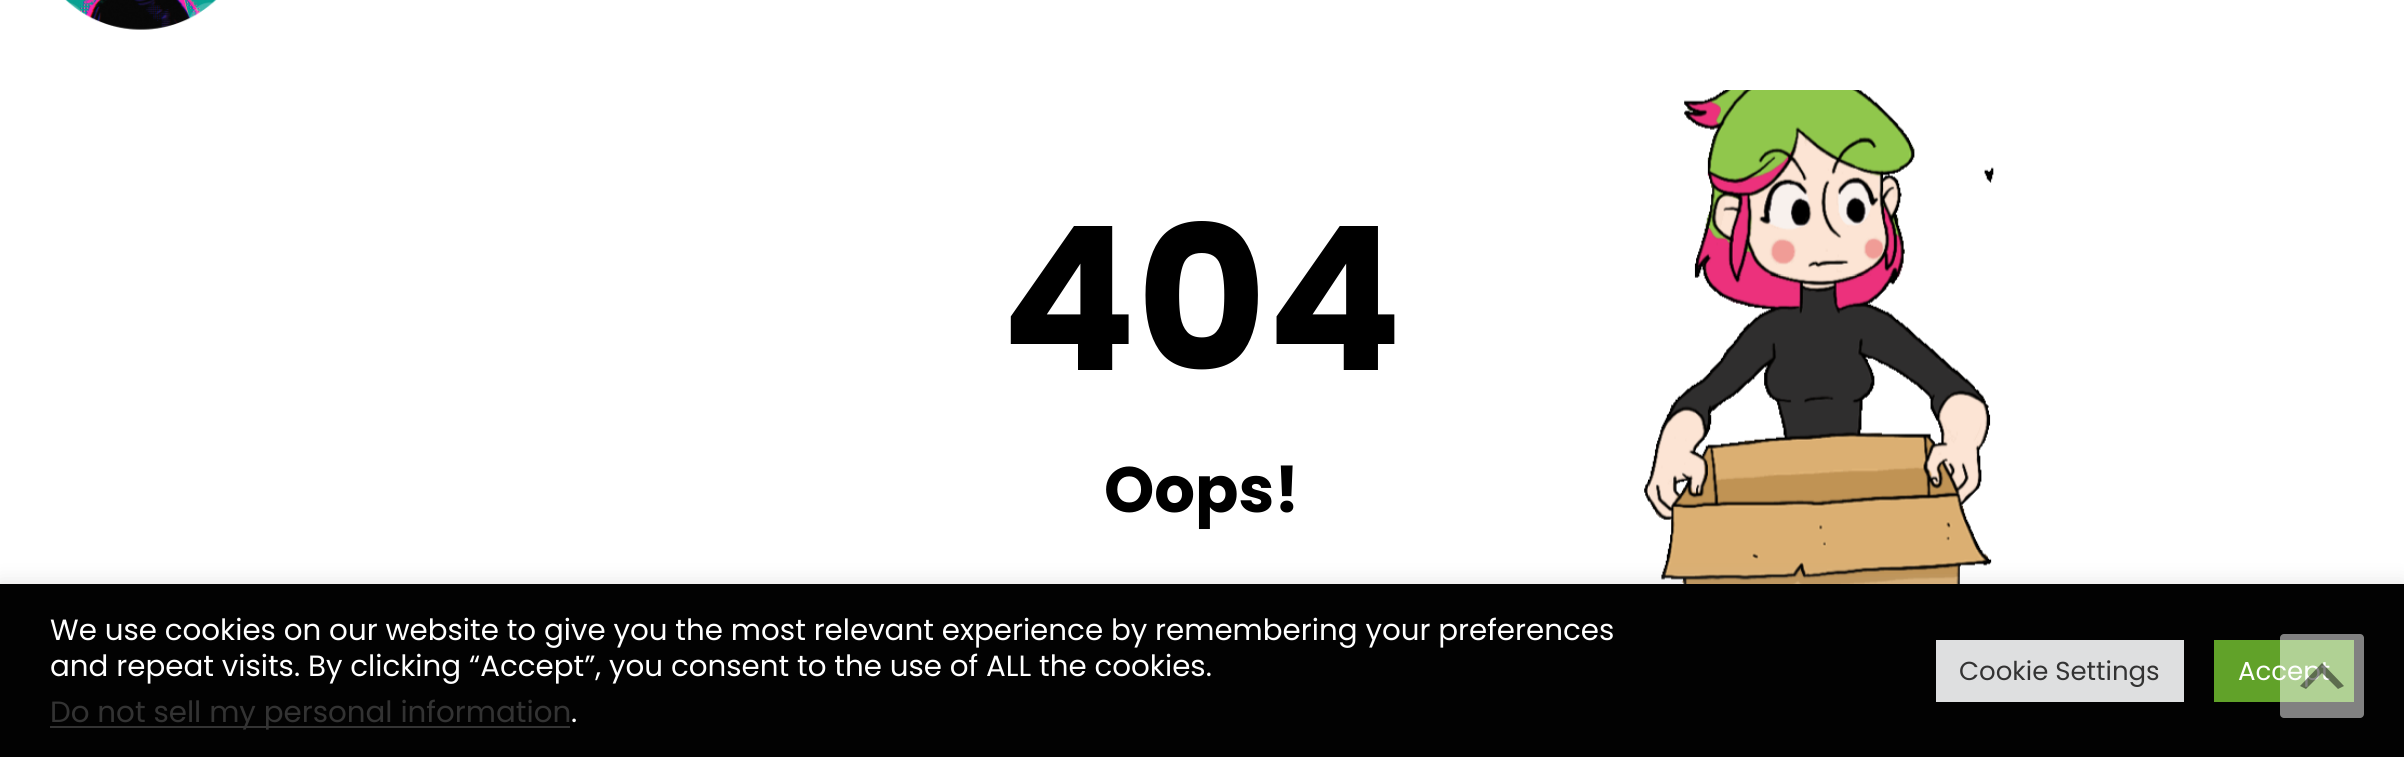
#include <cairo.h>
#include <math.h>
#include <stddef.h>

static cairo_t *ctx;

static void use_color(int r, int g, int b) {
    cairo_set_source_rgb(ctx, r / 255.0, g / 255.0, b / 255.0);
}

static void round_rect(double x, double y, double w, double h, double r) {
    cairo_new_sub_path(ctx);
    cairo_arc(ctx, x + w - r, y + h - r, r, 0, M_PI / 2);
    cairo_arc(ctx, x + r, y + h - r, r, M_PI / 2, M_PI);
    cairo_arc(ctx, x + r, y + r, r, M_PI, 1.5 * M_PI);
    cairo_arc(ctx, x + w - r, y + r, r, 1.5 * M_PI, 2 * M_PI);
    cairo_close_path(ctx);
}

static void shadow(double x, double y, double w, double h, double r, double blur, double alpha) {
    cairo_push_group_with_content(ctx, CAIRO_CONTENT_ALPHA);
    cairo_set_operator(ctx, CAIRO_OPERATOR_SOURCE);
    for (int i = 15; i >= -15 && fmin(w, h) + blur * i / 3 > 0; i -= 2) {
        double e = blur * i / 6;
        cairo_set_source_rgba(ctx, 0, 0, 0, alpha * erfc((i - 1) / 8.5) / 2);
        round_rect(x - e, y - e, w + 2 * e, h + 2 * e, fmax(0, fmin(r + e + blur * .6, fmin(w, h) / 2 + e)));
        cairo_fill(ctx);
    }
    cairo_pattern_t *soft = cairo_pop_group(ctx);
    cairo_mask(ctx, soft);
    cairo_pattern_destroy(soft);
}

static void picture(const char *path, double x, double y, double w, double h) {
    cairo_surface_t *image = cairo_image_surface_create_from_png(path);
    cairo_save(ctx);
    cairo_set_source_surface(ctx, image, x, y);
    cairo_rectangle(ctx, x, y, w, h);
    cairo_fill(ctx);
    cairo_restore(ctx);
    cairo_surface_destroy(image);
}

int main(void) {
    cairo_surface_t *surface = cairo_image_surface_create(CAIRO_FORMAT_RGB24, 2404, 757);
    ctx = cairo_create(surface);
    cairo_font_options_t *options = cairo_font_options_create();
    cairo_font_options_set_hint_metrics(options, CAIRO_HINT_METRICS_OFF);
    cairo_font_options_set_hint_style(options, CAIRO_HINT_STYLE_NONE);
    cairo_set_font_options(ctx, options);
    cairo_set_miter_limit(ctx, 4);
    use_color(255, 255, 255);
    cairo_paint(ctx);
    picture("img1.png", 65, 0, 152, 30);
    cairo_select_font_face(ctx, "Poppins", CAIRO_FONT_SLANT_NORMAL, CAIRO_FONT_WEIGHT_BOLD);
    cairo_set_font_size(ctx, 200);
    use_color(0, 0, 0);
    cairo_move_to(ctx, 1001, 370);
    cairo_show_text(ctx, "404");
    cairo_set_font_size(ctx, 64);
    cairo_move_to(ctx, 1104, 512);
    cairo_show_text(ctx, "Oops!");
    picture("img2.png", 1644, 90, 350, 494);
    use_color(172, 171, 171);
    shadow(0, 582, 2404, 174, 0, 10, 0.3);
    use_color(2, 2, 2);
    cairo_rectangle(ctx, 0, 584, 2404, 173);
    cairo_fill(ctx);
    cairo_select_font_face(ctx, "Poppins", CAIRO_FONT_SLANT_NORMAL, CAIRO_FONT_WEIGHT_NORMAL);
    cairo_set_font_size(ctx, 29.33);
    use_color(255, 255, 255);
    cairo_move_to(ctx, 50, 640);
    cairo_show_text(ctx, "We use cookies on our website to give you the most relevant experience by remembering your preferences");
    cairo_move_to(ctx, 50, 676);
    cairo_show_text(ctx, "and repeat visits. By clicking “Accept”, you consent to the use of ALL the cookies.");
    use_color(51, 51, 51);
    cairo_rectangle(ctx, 50, 726, 520, 2);
    cairo_fill(ctx);
    cairo_move_to(ctx, 50, 722);
    cairo_show_text(ctx, "Do not sell my personal information");
    use_color(255, 255, 255);
    cairo_move_to(ctx, 571, 722);
    cairo_show_text(ctx, ".");
    use_color(222, 223, 224);
    cairo_rectangle(ctx, 1936, 640, 248, 62);
    cairo_fill(ctx);
    cairo_set_font_size(ctx, 26);
    use_color(51, 51, 51);
    cairo_move_to(ctx, 1959, 680);
    cairo_show_text(ctx, "Cookie Settings");
    use_color(97, 162, 41);
    cairo_rectangle(ctx, 2214, 640, 140, 62);
    cairo_fill(ctx);
    use_color(255, 255, 255);
    cairo_move_to(ctx, 2238, 680);
    cairo_show_text(ctx, "Accept");
    cairo_set_source_rgba(ctx, 1, 1, 1, 0.5);
    round_rect(2280, 634, 84, 84, 4);
    cairo_fill(ctx);
    cairo_set_source_rgba(ctx, 0.039, 0.039, 0.039, 0.5);
    cairo_new_path(ctx);
    cairo_move_to(ctx, 2338, 689);
    cairo_line_to(ctx, 2322, 673);
    cairo_line_to(ctx, 2306, 689);
    cairo_line_to(ctx, 2300, 686);
    cairo_line_to(ctx, 2322, 663);
    cairo_line_to(ctx, 2344, 686);
    cairo_close_path(ctx);
    cairo_fill(ctx);
    cairo_surface_write_to_png(surface, "result.png");
    cairo_font_options_destroy(options);
    cairo_destroy(ctx);
    cairo_surface_destroy(surface);
    return 0;
}
